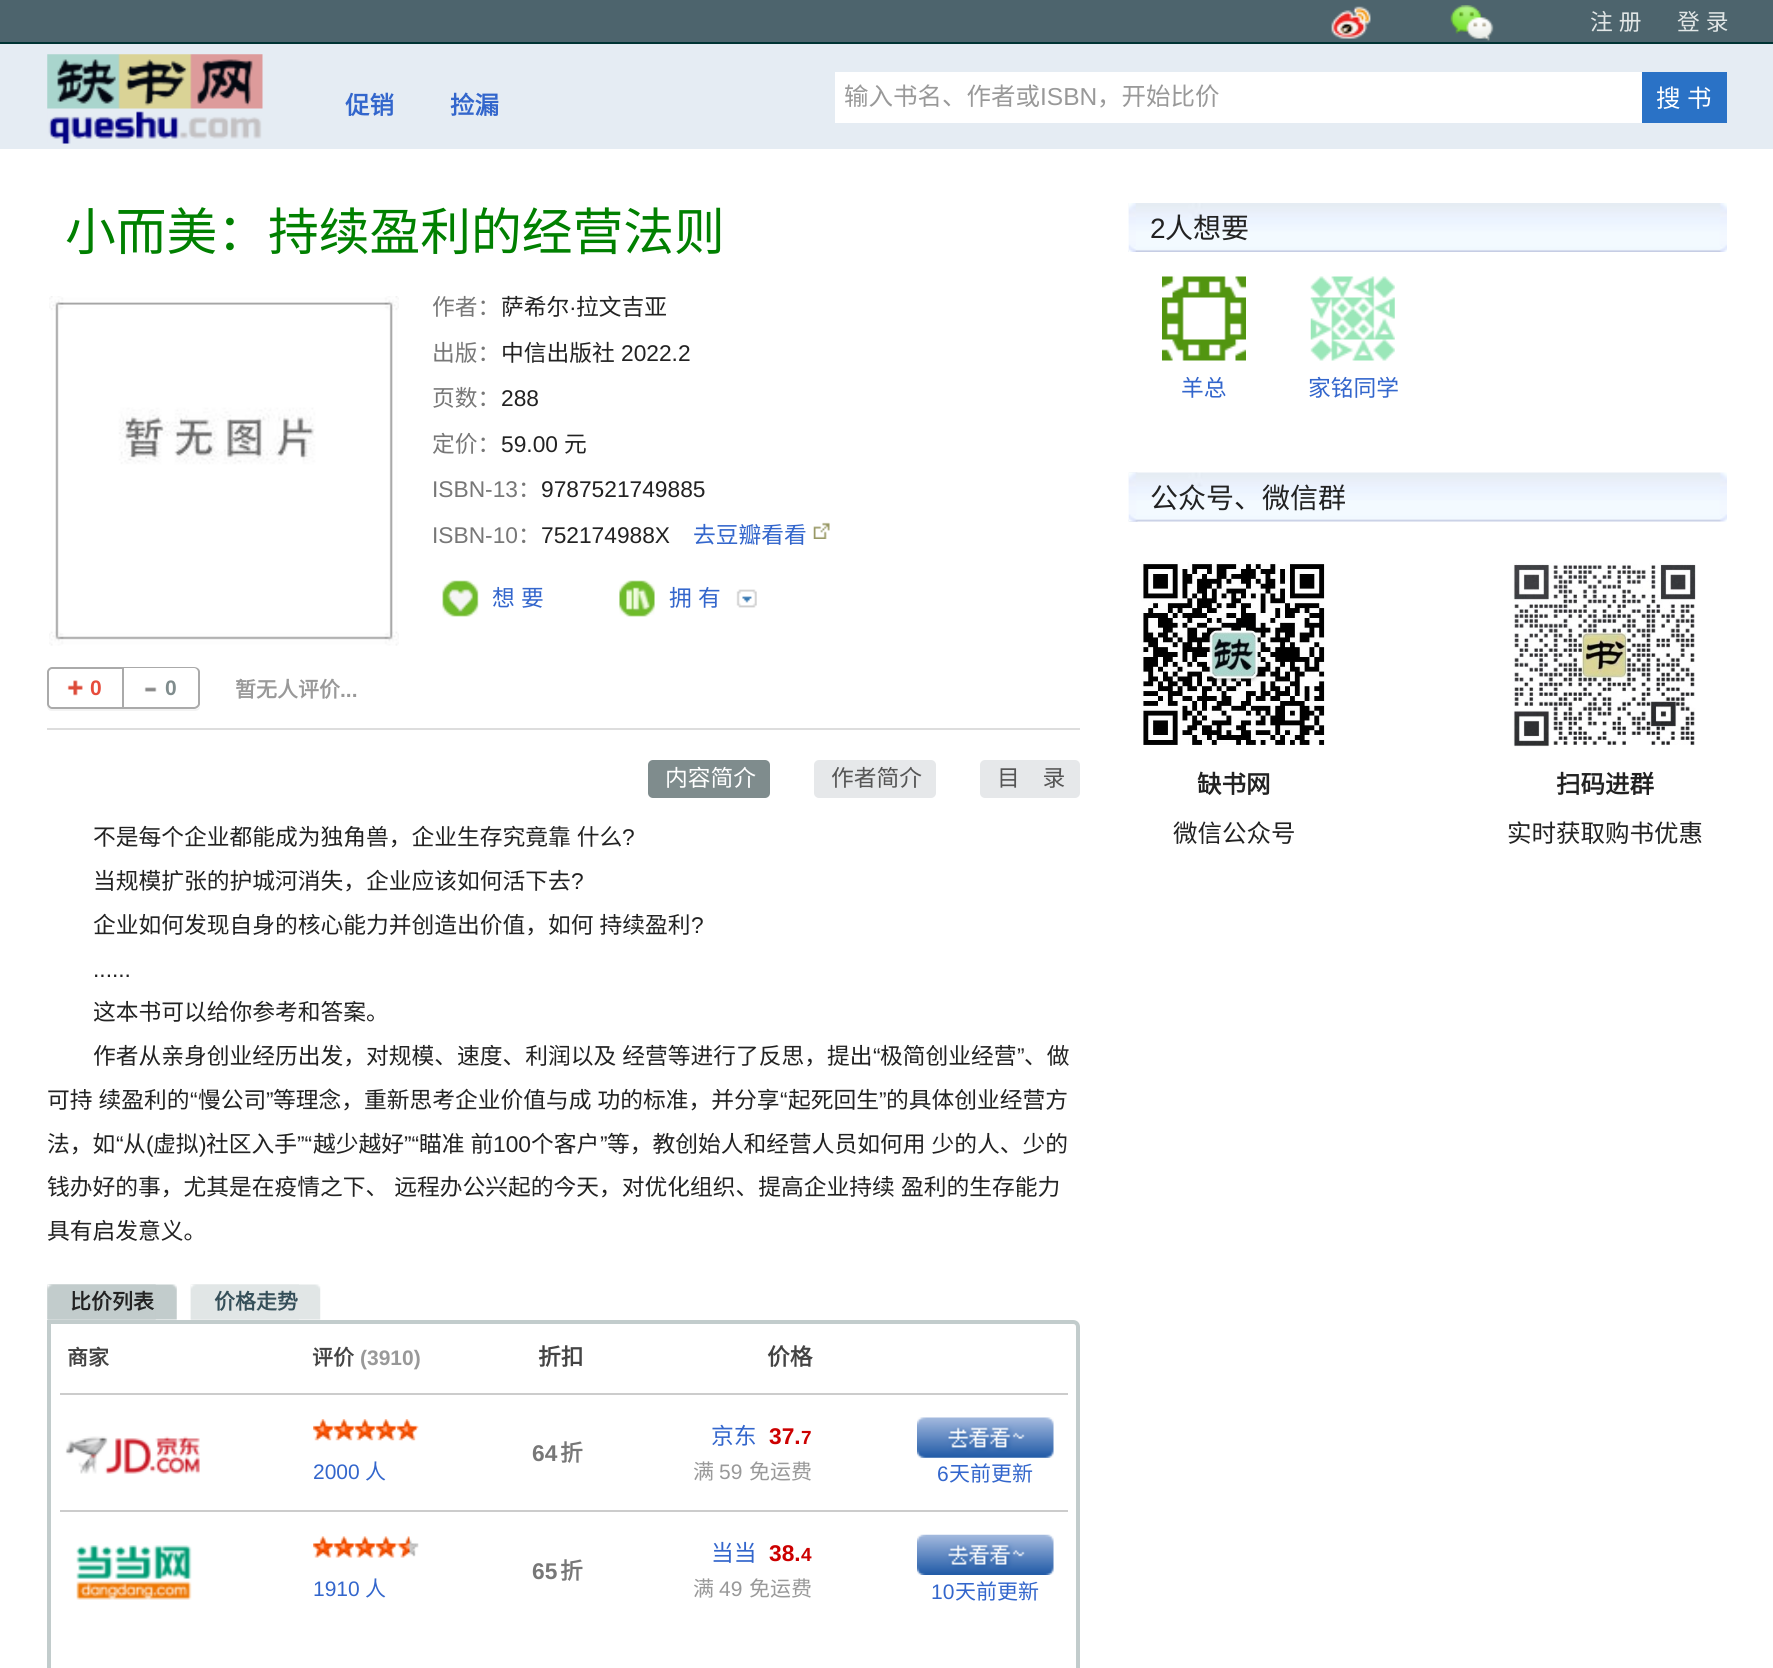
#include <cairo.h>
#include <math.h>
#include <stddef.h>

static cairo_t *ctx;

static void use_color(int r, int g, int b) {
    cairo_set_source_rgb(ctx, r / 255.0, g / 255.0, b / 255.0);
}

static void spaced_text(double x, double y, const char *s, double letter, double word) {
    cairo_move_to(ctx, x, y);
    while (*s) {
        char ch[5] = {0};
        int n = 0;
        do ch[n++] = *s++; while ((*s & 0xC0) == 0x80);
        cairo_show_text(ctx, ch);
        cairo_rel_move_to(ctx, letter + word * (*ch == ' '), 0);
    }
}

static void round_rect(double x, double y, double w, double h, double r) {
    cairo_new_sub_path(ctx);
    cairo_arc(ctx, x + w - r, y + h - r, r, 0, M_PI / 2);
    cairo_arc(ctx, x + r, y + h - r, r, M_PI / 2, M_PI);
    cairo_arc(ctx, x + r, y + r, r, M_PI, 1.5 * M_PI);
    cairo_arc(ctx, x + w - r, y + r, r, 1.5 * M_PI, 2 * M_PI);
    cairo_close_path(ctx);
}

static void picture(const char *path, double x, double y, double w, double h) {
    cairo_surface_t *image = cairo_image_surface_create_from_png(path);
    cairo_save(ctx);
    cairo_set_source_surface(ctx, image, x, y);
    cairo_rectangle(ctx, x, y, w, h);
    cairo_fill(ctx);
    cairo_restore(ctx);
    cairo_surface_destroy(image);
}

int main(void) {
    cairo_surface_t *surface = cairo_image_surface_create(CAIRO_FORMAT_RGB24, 1773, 1668);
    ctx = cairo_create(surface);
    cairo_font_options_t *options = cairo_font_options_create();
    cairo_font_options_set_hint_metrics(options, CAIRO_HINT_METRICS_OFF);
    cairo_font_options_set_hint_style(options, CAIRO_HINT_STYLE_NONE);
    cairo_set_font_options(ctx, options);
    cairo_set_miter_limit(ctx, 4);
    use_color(255, 255, 255);
    cairo_paint(ctx);
    use_color(77, 100, 109);
    cairo_rectangle(ctx, 0, 0, 1773, 42);
    cairo_fill(ctx);
    use_color(0, 51, 51);
    cairo_rectangle(ctx, 0, 42, 1773, 2);
    cairo_fill(ctx);
    picture("img1.png", 1331, 6, 40, 33);
    picture("img2.png", 1450, 5, 44, 36);
    cairo_select_font_face(ctx, "Noto Sans CJK SC", CAIRO_FONT_SLANT_NORMAL, CAIRO_FONT_WEIGHT_NORMAL);
    cairo_set_font_size(ctx, 22.75);
    use_color(225, 230, 230);
    spaced_text(1590, 30, "注 册", 0, 1);
    spaced_text(1677, 30, "登 录", 0, 1);
    use_color(229, 236, 243);
    cairo_rectangle(ctx, 0, 44, 1773, 105);
    cairo_fill(ctx);
    picture("img3.png", 47, 54, 216, 90);
    cairo_select_font_face(ctx, "Noto Sans CJK SC", CAIRO_FONT_SLANT_NORMAL, CAIRO_FONT_WEIGHT_BOLD);
    cairo_set_font_size(ctx, 24.5);
    use_color(51, 102, 204);
    cairo_move_to(ctx, 345, 114);
    cairo_show_text(ctx, "促销");
    cairo_move_to(ctx, 450, 114);
    cairo_show_text(ctx, "捡漏");
    use_color(255, 255, 255);
    cairo_rectangle(ctx, 835, 72, 807, 51);
    cairo_fill(ctx);
    cairo_select_font_face(ctx, "Noto Sans CJK SC", CAIRO_FONT_SLANT_NORMAL, CAIRO_FONT_WEIGHT_NORMAL);
    use_color(153, 153, 153);
    cairo_move_to(ctx, 844, 105);
    cairo_show_text(ctx, "输入书名、作者或");
    cairo_select_font_face(ctx, "Liberation Sans", CAIRO_FONT_SLANT_NORMAL, CAIRO_FONT_WEIGHT_NORMAL);
    cairo_move_to(ctx, 1040, 105);
    cairo_show_text(ctx, "ISBN");
    cairo_select_font_face(ctx, "Noto Sans CJK SC", CAIRO_FONT_SLANT_NORMAL, CAIRO_FONT_WEIGHT_NORMAL);
    cairo_move_to(ctx, 1097, 105);
    cairo_show_text(ctx, "，开始比价");
    use_color(42, 114, 198);
    cairo_rectangle(ctx, 1642, 72, 85, 51);
    cairo_fill(ctx);
    use_color(255, 255, 255);
    spaced_text(1656, 107, "搜 书", 0, 1);
    cairo_set_font_size(ctx, 50.75);
    use_color(0, 128, 0);
    cairo_move_to(ctx, 65, 250);
    cairo_show_text(ctx, "小而美：持续盈利的经营法则");
    picture("img4.png", 49, 296, 350, 350);
    cairo_set_font_size(ctx, 22.75);
    use_color(119, 119, 119);
    cairo_move_to(ctx, 432, 315);
    cairo_show_text(ctx, "作者：");
    use_color(34, 34, 34);
    cairo_move_to(ctx, 501, 315);
    cairo_show_text(ctx, "萨希尔");
    cairo_select_font_face(ctx, "Liberation Sans", CAIRO_FONT_SLANT_NORMAL, CAIRO_FONT_WEIGHT_NORMAL);
    cairo_move_to(ctx, 569, 315);
    cairo_show_text(ctx, "·");
    cairo_select_font_face(ctx, "Noto Sans CJK SC", CAIRO_FONT_SLANT_NORMAL, CAIRO_FONT_WEIGHT_NORMAL);
    cairo_move_to(ctx, 576, 315);
    cairo_show_text(ctx, "拉文吉亚");
    use_color(119, 119, 119);
    cairo_move_to(ctx, 432, 361);
    cairo_show_text(ctx, "出版：");
    use_color(34, 34, 34);
    cairo_move_to(ctx, 501, 361);
    cairo_show_text(ctx, "中信出版社");
    cairo_select_font_face(ctx, "Liberation Sans", CAIRO_FONT_SLANT_NORMAL, CAIRO_FONT_WEIGHT_NORMAL);
    cairo_move_to(ctx, 621, 361);
    cairo_show_text(ctx, "2022.2");
    cairo_select_font_face(ctx, "Noto Sans CJK SC", CAIRO_FONT_SLANT_NORMAL, CAIRO_FONT_WEIGHT_NORMAL);
    use_color(119, 119, 119);
    cairo_move_to(ctx, 432, 406);
    cairo_show_text(ctx, "页数：");
    cairo_select_font_face(ctx, "Liberation Sans", CAIRO_FONT_SLANT_NORMAL, CAIRO_FONT_WEIGHT_NORMAL);
    use_color(34, 34, 34);
    cairo_move_to(ctx, 501, 406);
    cairo_show_text(ctx, "288");
    cairo_select_font_face(ctx, "Noto Sans CJK SC", CAIRO_FONT_SLANT_NORMAL, CAIRO_FONT_WEIGHT_NORMAL);
    use_color(119, 119, 119);
    cairo_move_to(ctx, 432, 452);
    cairo_show_text(ctx, "定价：");
    cairo_select_font_face(ctx, "Liberation Sans", CAIRO_FONT_SLANT_NORMAL, CAIRO_FONT_WEIGHT_NORMAL);
    use_color(34, 34, 34);
    cairo_move_to(ctx, 501, 452);
    cairo_show_text(ctx, "59.00");
    cairo_select_font_face(ctx, "Noto Sans CJK SC", CAIRO_FONT_SLANT_NORMAL, CAIRO_FONT_WEIGHT_NORMAL);
    cairo_move_to(ctx, 564, 452);
    cairo_show_text(ctx, "元");
    cairo_select_font_face(ctx, "Liberation Sans", CAIRO_FONT_SLANT_NORMAL, CAIRO_FONT_WEIGHT_NORMAL);
    use_color(119, 119, 119);
    cairo_move_to(ctx, 432, 497);
    cairo_show_text(ctx, "ISBN-13");
    cairo_select_font_face(ctx, "Noto Sans CJK SC", CAIRO_FONT_SLANT_NORMAL, CAIRO_FONT_WEIGHT_NORMAL);
    cairo_move_to(ctx, 518, 497);
    cairo_show_text(ctx, "：");
    cairo_select_font_face(ctx, "Liberation Sans", CAIRO_FONT_SLANT_NORMAL, CAIRO_FONT_WEIGHT_NORMAL);
    use_color(34, 34, 34);
    cairo_move_to(ctx, 541, 497);
    cairo_show_text(ctx, "9787521749885");
    use_color(119, 119, 119);
    cairo_move_to(ctx, 432, 543);
    cairo_show_text(ctx, "ISBN-10");
    cairo_select_font_face(ctx, "Noto Sans CJK SC", CAIRO_FONT_SLANT_NORMAL, CAIRO_FONT_WEIGHT_NORMAL);
    cairo_move_to(ctx, 518, 543);
    cairo_show_text(ctx, "：");
    cairo_select_font_face(ctx, "Liberation Sans", CAIRO_FONT_SLANT_NORMAL, CAIRO_FONT_WEIGHT_NORMAL);
    use_color(34, 34, 34);
    cairo_move_to(ctx, 541, 543);
    cairo_show_text(ctx, "752174988X");
    cairo_select_font_face(ctx, "Noto Sans CJK SC", CAIRO_FONT_SLANT_NORMAL, CAIRO_FONT_WEIGHT_NORMAL);
    use_color(51, 102, 204);
    cairo_move_to(ctx, 693, 543);
    cairo_show_text(ctx, "去豆瓣看看");
    picture("img5.png", 813, 522, 17, 17);
    picture("img6.png", 442, 580, 37, 37);
    cairo_move_to(ctx, 492, 606);
    cairo_show_text(ctx, "想");
    cairo_move_to(ctx, 521, 606);
    cairo_show_text(ctx, "要");
    picture("img7.png", 619, 580, 36, 37);
    cairo_move_to(ctx, 669, 606);
    cairo_show_text(ctx, "拥");
    cairo_move_to(ctx, 698, 606);
    cairo_show_text(ctx, "有");
    picture("img8.png", 736, 589, 21, 19);
    use_color(243, 243, 243);
    cairo_new_path(ctx);
    cairo_move_to(ctx, 47, 672);
    cairo_line_to(ctx, 47, 701);
    cairo_curve_to(ctx, 47, 705, 46, 711, 52, 711);
    cairo_line_to(ctx, 124, 711);
    cairo_line_to(ctx, 124, 709);
    cairo_line_to(ctx, 52, 709);
    cairo_curve_to(ctx, 50, 709, 47, 706, 47, 704);
    cairo_close_path(ctx);
    cairo_fill(ctx);
    use_color(255, 255, 255);
    cairo_new_path(ctx);
    cairo_move_to(ctx, 52, 667);
    cairo_line_to(ctx, 124, 667);
    cairo_line_to(ctx, 124, 709);
    cairo_line_to(ctx, 52, 709);
    cairo_curve_to(ctx, 49, 709, 47, 707, 47, 704);
    cairo_line_to(ctx, 47, 672);
    cairo_curve_to(ctx, 47, 669, 49, 667, 52, 667);
    cairo_close_path(ctx);
    cairo_fill(ctx);
    picture("img9.png", 67, 680, 16, 16);
    cairo_new_path(ctx);
    cairo_move_to(ctx, 52, 668);
    cairo_line_to(ctx, 123, 668);
    cairo_line_to(ctx, 123, 708);
    cairo_line_to(ctx, 52, 708);
    cairo_curve_to(ctx, 50, 708, 48, 706, 48, 704);
    cairo_line_to(ctx, 48, 672);
    cairo_curve_to(ctx, 48, 670, 50, 668, 52, 668);
    cairo_close_path(ctx);
    use_color(170, 170, 170);
    cairo_stroke(ctx);
    cairo_select_font_face(ctx, "Liberation Sans", CAIRO_FONT_SLANT_NORMAL, CAIRO_FONT_WEIGHT_BOLD);
    cairo_set_font_size(ctx, 21);
    use_color(231, 76, 60);
    cairo_move_to(ctx, 90, 695);
    cairo_show_text(ctx, "0");
    use_color(243, 243, 243);
    cairo_new_path(ctx);
    cairo_move_to(ctx, 124, 669);
    cairo_line_to(ctx, 124, 711);
    cairo_line_to(ctx, 195, 711);
    cairo_curve_to(ctx, 198, 711, 200, 709, 200, 706);
    cairo_line_to(ctx, 200, 674);
    cairo_line_to(ctx, 199, 672);
    cairo_line_to(ctx, 200, 698);
    cairo_curve_to(ctx, 200, 712, 196, 709, 183, 709);
    cairo_line_to(ctx, 124, 709);
    cairo_close_path(ctx);
    cairo_fill(ctx);
    use_color(255, 255, 255);
    cairo_new_path(ctx);
    cairo_move_to(ctx, 124, 667);
    cairo_line_to(ctx, 195, 667);
    cairo_curve_to(ctx, 198, 667, 200, 669, 200, 672);
    cairo_line_to(ctx, 200, 704);
    cairo_curve_to(ctx, 200, 707, 198, 709, 195, 709);
    cairo_line_to(ctx, 124, 709);
    cairo_close_path(ctx);
    cairo_fill(ctx);
    picture("img10.png", 144, 687, 13, 5);
    use_color(170, 170, 170);
    cairo_set_fill_rule(ctx, CAIRO_FILL_RULE_EVEN_ODD);
    cairo_new_path(ctx);
    cairo_move_to(ctx, 124, 667);
    cairo_line_to(ctx, 194, 667);
    cairo_curve_to(ctx, 197, 667, 200, 669, 200, 672);
    cairo_line_to(ctx, 200, 704);
    cairo_curve_to(ctx, 200, 706, 197, 709, 194, 709);
    cairo_line_to(ctx, 124, 709);
    cairo_close_path(ctx);
    cairo_move_to(ctx, 124, 668);
    cairo_line_to(ctx, 194, 668);
    cairo_curve_to(ctx, 196, 668, 198, 670, 198, 672);
    cairo_line_to(ctx, 198, 704);
    cairo_curve_to(ctx, 198, 705, 196, 707, 194, 707);
    cairo_line_to(ctx, 124, 707);
    cairo_close_path(ctx);
    cairo_fill(ctx);
    use_color(127, 140, 141);
    cairo_move_to(ctx, 165, 695);
    cairo_show_text(ctx, "0");
    cairo_select_font_face(ctx, "Noto Sans CJK SC", CAIRO_FONT_SLANT_NORMAL, CAIRO_FONT_WEIGHT_BOLD);
    use_color(153, 153, 153);
    cairo_move_to(ctx, 235, 697);
    cairo_show_text(ctx, "暂无人评价");
    cairo_select_font_face(ctx, "Liberation Sans", CAIRO_FONT_SLANT_NORMAL, CAIRO_FONT_WEIGHT_BOLD);
    cairo_move_to(ctx, 340, 697);
    cairo_show_text(ctx, "...");
    use_color(221, 221, 221);
    cairo_rectangle(ctx, 47, 728, 1033, 2);
    cairo_fill(ctx);
    use_color(127, 140, 141);
    round_rect(648, 760, 122, 38, 5);
    cairo_fill(ctx);
    cairo_select_font_face(ctx, "Noto Sans CJK SC", CAIRO_FONT_SLANT_NORMAL, CAIRO_FONT_WEIGHT_NORMAL);
    cairo_set_font_size(ctx, 22.75);
    use_color(255, 255, 255);
    cairo_move_to(ctx, 665, 786);
    cairo_show_text(ctx, "内容简介");
    use_color(230, 232, 234);
    round_rect(814, 760, 122, 38, 5);
    cairo_fill(ctx);
    use_color(85, 85, 85);
    cairo_move_to(ctx, 831, 786);
    cairo_show_text(ctx, "作者简介");
    use_color(230, 232, 234);
    round_rect(980, 760, 100, 38, 5);
    cairo_fill(ctx);
    use_color(85, 85, 85);
    cairo_move_to(ctx, 997, 786);
    cairo_show_text(ctx, "目　录");
    use_color(34, 34, 34);
    spaced_text(93, 845, "不是每个企业都能成为独角兽，企业生存究竟靠 什么", 0, 1);
    cairo_select_font_face(ctx, "Liberation Sans", CAIRO_FONT_SLANT_NORMAL, CAIRO_FONT_WEIGHT_NORMAL);
    cairo_move_to(ctx, 622, 845);
    cairo_show_text(ctx, "?");
    cairo_select_font_face(ctx, "Noto Sans CJK SC", CAIRO_FONT_SLANT_NORMAL, CAIRO_FONT_WEIGHT_NORMAL);
    cairo_move_to(ctx, 93, 889);
    cairo_show_text(ctx, "当规模扩张的护城河消失，企业应该如何活下去");
    cairo_select_font_face(ctx, "Liberation Sans", CAIRO_FONT_SLANT_NORMAL, CAIRO_FONT_WEIGHT_NORMAL);
    cairo_move_to(ctx, 571, 889);
    cairo_show_text(ctx, "?");
    cairo_select_font_face(ctx, "Noto Sans CJK SC", CAIRO_FONT_SLANT_NORMAL, CAIRO_FONT_WEIGHT_NORMAL);
    spaced_text(93, 933, "企业如何发现自身的核心能力并创造出价值，如何 持续盈利", 0, 1);
    cairo_select_font_face(ctx, "Liberation Sans", CAIRO_FONT_SLANT_NORMAL, CAIRO_FONT_WEIGHT_NORMAL);
    cairo_move_to(ctx, 691, 933);
    cairo_show_text(ctx, "?");
    cairo_move_to(ctx, 93, 977);
    cairo_show_text(ctx, "......");
    cairo_select_font_face(ctx, "Noto Sans CJK SC", CAIRO_FONT_SLANT_NORMAL, CAIRO_FONT_WEIGHT_NORMAL);
    cairo_move_to(ctx, 93, 1020);
    cairo_show_text(ctx, "这本书可以给你参考和答案。");
    spaced_text(93, 1064, "作者从亲身创业经历出发，对规模、速度、利润以及 经营等进行了反思，提出", 0, 1);
    cairo_select_font_face(ctx, "Liberation Sans", CAIRO_FONT_SLANT_NORMAL, CAIRO_FONT_WEIGHT_NORMAL);
    cairo_move_to(ctx, 873, 1064);
    cairo_show_text(ctx, "“");
    cairo_select_font_face(ctx, "Noto Sans CJK SC", CAIRO_FONT_SLANT_NORMAL, CAIRO_FONT_WEIGHT_NORMAL);
    cairo_move_to(ctx, 880, 1064);
    cairo_show_text(ctx, "极简创业经营");
    cairo_select_font_face(ctx, "Liberation Sans", CAIRO_FONT_SLANT_NORMAL, CAIRO_FONT_WEIGHT_NORMAL);
    cairo_move_to(ctx, 1017, 1064);
    cairo_show_text(ctx, "”");
    cairo_select_font_face(ctx, "Noto Sans CJK SC", CAIRO_FONT_SLANT_NORMAL, CAIRO_FONT_WEIGHT_NORMAL);
    cairo_move_to(ctx, 1024, 1064);
    cairo_show_text(ctx, "、做");
    spaced_text(47, 1108, "可持 续盈利的", 0, 1);
    cairo_select_font_face(ctx, "Liberation Sans", CAIRO_FONT_SLANT_NORMAL, CAIRO_FONT_WEIGHT_NORMAL);
    cairo_move_to(ctx, 190, 1108);
    cairo_show_text(ctx, "“");
    cairo_select_font_face(ctx, "Noto Sans CJK SC", CAIRO_FONT_SLANT_NORMAL, CAIRO_FONT_WEIGHT_NORMAL);
    cairo_move_to(ctx, 198, 1108);
    cairo_show_text(ctx, "慢公司");
    cairo_select_font_face(ctx, "Liberation Sans", CAIRO_FONT_SLANT_NORMAL, CAIRO_FONT_WEIGHT_NORMAL);
    cairo_move_to(ctx, 266, 1108);
    cairo_show_text(ctx, "”");
    cairo_select_font_face(ctx, "Noto Sans CJK SC", CAIRO_FONT_SLANT_NORMAL, CAIRO_FONT_WEIGHT_NORMAL);
    spaced_text(273, 1108, "等理念，重新思考企业价值与成 功的标准，并分享", 0, 1);
    cairo_select_font_face(ctx, "Liberation Sans", CAIRO_FONT_SLANT_NORMAL, CAIRO_FONT_WEIGHT_NORMAL);
    cairo_move_to(ctx, 780, 1108);
    cairo_show_text(ctx, "“");
    cairo_select_font_face(ctx, "Noto Sans CJK SC", CAIRO_FONT_SLANT_NORMAL, CAIRO_FONT_WEIGHT_NORMAL);
    cairo_move_to(ctx, 788, 1108);
    cairo_show_text(ctx, "起死回生");
    cairo_select_font_face(ctx, "Liberation Sans", CAIRO_FONT_SLANT_NORMAL, CAIRO_FONT_WEIGHT_NORMAL);
    cairo_move_to(ctx, 879, 1108);
    cairo_show_text(ctx, "”");
    cairo_select_font_face(ctx, "Noto Sans CJK SC", CAIRO_FONT_SLANT_NORMAL, CAIRO_FONT_WEIGHT_NORMAL);
    cairo_move_to(ctx, 886, 1108);
    cairo_show_text(ctx, "的具体创业经营方");
    cairo_move_to(ctx, 47, 1152);
    cairo_show_text(ctx, "法，如");
    cairo_select_font_face(ctx, "Liberation Sans", CAIRO_FONT_SLANT_NORMAL, CAIRO_FONT_WEIGHT_NORMAL);
    cairo_move_to(ctx, 116, 1152);
    cairo_show_text(ctx, "“");
    cairo_select_font_face(ctx, "Noto Sans CJK SC", CAIRO_FONT_SLANT_NORMAL, CAIRO_FONT_WEIGHT_NORMAL);
    cairo_move_to(ctx, 123, 1152);
    cairo_show_text(ctx, "从");
    cairo_select_font_face(ctx, "Liberation Sans", CAIRO_FONT_SLANT_NORMAL, CAIRO_FONT_WEIGHT_NORMAL);
    cairo_move_to(ctx, 146, 1152);
    cairo_show_text(ctx, "(");
    cairo_select_font_face(ctx, "Noto Sans CJK SC", CAIRO_FONT_SLANT_NORMAL, CAIRO_FONT_WEIGHT_NORMAL);
    cairo_move_to(ctx, 153, 1152);
    cairo_show_text(ctx, "虚拟");
    cairo_select_font_face(ctx, "Liberation Sans", CAIRO_FONT_SLANT_NORMAL, CAIRO_FONT_WEIGHT_NORMAL);
    cairo_move_to(ctx, 199, 1152);
    cairo_show_text(ctx, ")");
    cairo_select_font_face(ctx, "Noto Sans CJK SC", CAIRO_FONT_SLANT_NORMAL, CAIRO_FONT_WEIGHT_NORMAL);
    cairo_move_to(ctx, 206, 1152);
    cairo_show_text(ctx, "社区入手");
    cairo_select_font_face(ctx, "Liberation Sans", CAIRO_FONT_SLANT_NORMAL, CAIRO_FONT_WEIGHT_NORMAL);
    cairo_move_to(ctx, 297, 1152);
    cairo_show_text(ctx, "”“");
    cairo_select_font_face(ctx, "Noto Sans CJK SC", CAIRO_FONT_SLANT_NORMAL, CAIRO_FONT_WEIGHT_NORMAL);
    cairo_move_to(ctx, 313, 1152);
    cairo_show_text(ctx, "越少越好");
    cairo_select_font_face(ctx, "Liberation Sans", CAIRO_FONT_SLANT_NORMAL, CAIRO_FONT_WEIGHT_NORMAL);
    cairo_move_to(ctx, 404, 1152);
    cairo_show_text(ctx, "”“");
    cairo_select_font_face(ctx, "Noto Sans CJK SC", CAIRO_FONT_SLANT_NORMAL, CAIRO_FONT_WEIGHT_NORMAL);
    spaced_text(419, 1152, "瞄准 前", 0, 1);
    cairo_select_font_face(ctx, "Liberation Sans", CAIRO_FONT_SLANT_NORMAL, CAIRO_FONT_WEIGHT_NORMAL);
    cairo_move_to(ctx, 493, 1152);
    cairo_show_text(ctx, "100");
    cairo_select_font_face(ctx, "Noto Sans CJK SC", CAIRO_FONT_SLANT_NORMAL, CAIRO_FONT_WEIGHT_NORMAL);
    cairo_move_to(ctx, 531, 1152);
    cairo_show_text(ctx, "个客户");
    cairo_select_font_face(ctx, "Liberation Sans", CAIRO_FONT_SLANT_NORMAL, CAIRO_FONT_WEIGHT_NORMAL);
    cairo_move_to(ctx, 600, 1152);
    cairo_show_text(ctx, "”");
    cairo_select_font_face(ctx, "Noto Sans CJK SC", CAIRO_FONT_SLANT_NORMAL, CAIRO_FONT_WEIGHT_NORMAL);
    spaced_text(607, 1152, "等，教创始人和经营人员如何用 少的人、少的", 0, 1);
    spaced_text(47, 1195, "钱办好的事，尤其是在疫情之下、 远程办公兴起的今天，对优化组织、提高企业持续 盈利的生存能力", 0, 1);
    cairo_move_to(ctx, 47, 1239);
    cairo_show_text(ctx, "具有启发意义。");
    picture("img11.png", 47, 1284, 130, 36);
    picture("img12.png", 47, 1284, 109, 36);
    cairo_select_font_face(ctx, "Noto Sans CJK SC", CAIRO_FONT_SLANT_NORMAL, CAIRO_FONT_WEIGHT_BOLD);
    cairo_set_font_size(ctx, 21);
    cairo_move_to(ctx, 70, 1309);
    cairo_show_text(ctx, "比价列表");
    picture("img13.png", 190, 1284, 131, 36);
    picture("img14.png", 190, 1284, 109, 36);
    use_color(53, 79, 89);
    cairo_move_to(ctx, 214, 1309);
    cairo_show_text(ctx, "价格走势");
    cairo_new_path(ctx);
    cairo_move_to(ctx, 49, 1322);
    cairo_line_to(ctx, 1073, 1322);
    cairo_curve_to(ctx, 1076, 1322, 1078, 1324, 1078, 1327);
    cairo_line_to(ctx, 1078, 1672);
    cairo_curve_to(ctx, 1078, 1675, 1076, 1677, 1073, 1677);
    cairo_line_to(ctx, 54, 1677);
    cairo_curve_to(ctx, 51, 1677, 49, 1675, 49, 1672);
    cairo_close_path(ctx);
    use_color(194, 204, 204);
    cairo_set_line_width(ctx, 4);
    cairo_stroke(ctx);
    use_color(68, 68, 68);
    cairo_move_to(ctx, 67, 1365);
    cairo_show_text(ctx, "商家");
    cairo_move_to(ctx, 312, 1365);
    cairo_show_text(ctx, "评价");
    cairo_select_font_face(ctx, "Liberation Sans", CAIRO_FONT_SLANT_NORMAL, CAIRO_FONT_WEIGHT_BOLD);
    use_color(153, 153, 153);
    cairo_move_to(ctx, 360, 1365);
    cairo_show_text(ctx, "(3910)");
    cairo_select_font_face(ctx, "Noto Sans CJK SC", CAIRO_FONT_SLANT_NORMAL, CAIRO_FONT_WEIGHT_BOLD);
    cairo_set_font_size(ctx, 22.75);
    use_color(68, 68, 68);
    cairo_move_to(ctx, 538, 1365);
    cairo_show_text(ctx, "折扣");
    cairo_move_to(ctx, 767, 1365);
    cairo_show_text(ctx, "价格");
    use_color(204, 204, 204);
    cairo_rectangle(ctx, 60, 1393, 1008, 2);
    cairo_fill(ctx);
    picture("img15.png", 65, 1436, 135, 38);
    cairo_select_font_face(ctx, "Liberation Sans", CAIRO_FONT_SLANT_NORMAL, CAIRO_FONT_WEIGHT_BOLD);
    use_color(119, 119, 119);
    cairo_move_to(ctx, 532, 1461);
    cairo_show_text(ctx, "64");
    cairo_select_font_face(ctx, "Noto Sans CJK SC", CAIRO_FONT_SLANT_NORMAL, CAIRO_FONT_WEIGHT_BOLD);
    cairo_move_to(ctx, 560, 1461);
    cairo_show_text(ctx, "折");
    cairo_select_font_face(ctx, "Noto Sans CJK SC", CAIRO_FONT_SLANT_NORMAL, CAIRO_FONT_WEIGHT_NORMAL);
    use_color(51, 102, 204);
    cairo_move_to(ctx, 711, 1444);
    cairo_show_text(ctx, "京东");
    cairo_select_font_face(ctx, "Liberation Sans", CAIRO_FONT_SLANT_NORMAL, CAIRO_FONT_WEIGHT_BOLD);
    use_color(204, 0, 0);
    cairo_move_to(ctx, 769, 1444);
    cairo_show_text(ctx, "37.");
    cairo_set_font_size(ctx, 19);
    cairo_move_to(ctx, 801, 1444);
    cairo_show_text(ctx, "7");
    cairo_select_font_face(ctx, "Noto Sans CJK SC", CAIRO_FONT_SLANT_NORMAL, CAIRO_FONT_WEIGHT_NORMAL);
    cairo_set_font_size(ctx, 21);
    use_color(153, 153, 153);
    cairo_move_to(ctx, 693, 1479);
    cairo_show_text(ctx, "满");
    cairo_select_font_face(ctx, "Liberation Sans", CAIRO_FONT_SLANT_NORMAL, CAIRO_FONT_WEIGHT_NORMAL);
    cairo_move_to(ctx, 719, 1479);
    cairo_show_text(ctx, "59");
    cairo_select_font_face(ctx, "Noto Sans CJK SC", CAIRO_FONT_SLANT_NORMAL, CAIRO_FONT_WEIGHT_NORMAL);
    cairo_move_to(ctx, 749, 1479);
    cairo_show_text(ctx, "免运费");
    picture("img16.png", 313, 1419, 22, 22);
    picture("img17.png", 334, 1419, 22, 22);
    picture("img18.png", 355, 1419, 22, 22);
    picture("img17.png", 376, 1419, 22, 22);
    picture("img17.png", 397, 1419, 22, 22);
    cairo_select_font_face(ctx, "Liberation Sans", CAIRO_FONT_SLANT_NORMAL, CAIRO_FONT_WEIGHT_NORMAL);
    use_color(51, 102, 204);
    cairo_move_to(ctx, 313, 1479);
    cairo_show_text(ctx, "2000");
    cairo_select_font_face(ctx, "Noto Sans CJK SC", CAIRO_FONT_SLANT_NORMAL, CAIRO_FONT_WEIGHT_NORMAL);
    cairo_move_to(ctx, 365, 1479);
    cairo_show_text(ctx, "人");
    picture("img19.png", 917, 1417, 137, 41);
    cairo_select_font_face(ctx, "Liberation Sans", CAIRO_FONT_SLANT_NORMAL, CAIRO_FONT_WEIGHT_NORMAL);
    cairo_move_to(ctx, 937, 1481);
    cairo_show_text(ctx, "6");
    cairo_select_font_face(ctx, "Noto Sans CJK SC", CAIRO_FONT_SLANT_NORMAL, CAIRO_FONT_WEIGHT_NORMAL);
    cairo_move_to(ctx, 949, 1481);
    cairo_show_text(ctx, "天前更新");
    use_color(204, 204, 204);
    cairo_rectangle(ctx, 60, 1510, 1008, 2);
    cairo_fill(ctx);
    picture("img20.png", 76, 1545, 116, 55);
    cairo_select_font_face(ctx, "Liberation Sans", CAIRO_FONT_SLANT_NORMAL, CAIRO_FONT_WEIGHT_BOLD);
    cairo_set_font_size(ctx, 22.75);
    use_color(119, 119, 119);
    cairo_move_to(ctx, 532, 1579);
    cairo_show_text(ctx, "65");
    cairo_select_font_face(ctx, "Noto Sans CJK SC", CAIRO_FONT_SLANT_NORMAL, CAIRO_FONT_WEIGHT_BOLD);
    cairo_move_to(ctx, 560, 1579);
    cairo_show_text(ctx, "折");
    cairo_select_font_face(ctx, "Noto Sans CJK SC", CAIRO_FONT_SLANT_NORMAL, CAIRO_FONT_WEIGHT_NORMAL);
    use_color(51, 102, 204);
    cairo_move_to(ctx, 711, 1561);
    cairo_show_text(ctx, "当当");
    cairo_select_font_face(ctx, "Liberation Sans", CAIRO_FONT_SLANT_NORMAL, CAIRO_FONT_WEIGHT_BOLD);
    use_color(204, 0, 0);
    cairo_move_to(ctx, 769, 1561);
    cairo_show_text(ctx, "38.");
    cairo_set_font_size(ctx, 19);
    cairo_move_to(ctx, 801, 1561);
    cairo_show_text(ctx, "4");
    cairo_select_font_face(ctx, "Noto Sans CJK SC", CAIRO_FONT_SLANT_NORMAL, CAIRO_FONT_WEIGHT_NORMAL);
    cairo_set_font_size(ctx, 21);
    use_color(153, 153, 153);
    cairo_move_to(ctx, 693, 1596);
    cairo_show_text(ctx, "满");
    cairo_select_font_face(ctx, "Liberation Sans", CAIRO_FONT_SLANT_NORMAL, CAIRO_FONT_WEIGHT_NORMAL);
    cairo_move_to(ctx, 719, 1596);
    cairo_show_text(ctx, "49");
    cairo_select_font_face(ctx, "Noto Sans CJK SC", CAIRO_FONT_SLANT_NORMAL, CAIRO_FONT_WEIGHT_NORMAL);
    cairo_move_to(ctx, 749, 1596);
    cairo_show_text(ctx, "免运费");
    picture("img21.png", 313, 1536, 22, 22);
    picture("img22.png", 334, 1536, 22, 22);
    picture("img23.png", 355, 1536, 22, 22);
    picture("img22.png", 376, 1536, 22, 22);
    picture("img24.png", 397, 1536, 22, 22);
    cairo_select_font_face(ctx, "Liberation Sans", CAIRO_FONT_SLANT_NORMAL, CAIRO_FONT_WEIGHT_NORMAL);
    use_color(51, 102, 204);
    cairo_move_to(ctx, 313, 1596);
    cairo_show_text(ctx, "1910");
    cairo_select_font_face(ctx, "Noto Sans CJK SC", CAIRO_FONT_SLANT_NORMAL, CAIRO_FONT_WEIGHT_NORMAL);
    cairo_move_to(ctx, 365, 1596);
    cairo_show_text(ctx, "人");
    picture("img25.png", 917, 1534, 137, 41);
    cairo_select_font_face(ctx, "Liberation Sans", CAIRO_FONT_SLANT_NORMAL, CAIRO_FONT_WEIGHT_NORMAL);
    cairo_move_to(ctx, 931, 1599);
    cairo_show_text(ctx, "10");
    cairo_select_font_face(ctx, "Noto Sans CJK SC", CAIRO_FONT_SLANT_NORMAL, CAIRO_FONT_WEIGHT_NORMAL);
    cairo_move_to(ctx, 955, 1599);
    cairo_show_text(ctx, "天前更新");
    picture("img26.png", 1128, 203, 599, 49);
    picture("img27.png", 1128, 203, 8, 49);
    cairo_select_font_face(ctx, "Liberation Sans", CAIRO_FONT_SLANT_NORMAL, CAIRO_FONT_WEIGHT_NORMAL);
    cairo_set_font_size(ctx, 28);
    use_color(34, 34, 34);
    cairo_move_to(ctx, 1150, 238);
    cairo_show_text(ctx, "2");
    cairo_select_font_face(ctx, "Noto Sans CJK SC", CAIRO_FONT_SLANT_NORMAL, CAIRO_FONT_WEIGHT_NORMAL);
    cairo_move_to(ctx, 1165, 238);
    cairo_show_text(ctx, "人想要");
    picture("img28.png", 1162, 276, 84, 85);
    cairo_set_font_size(ctx, 22.75);
    use_color(51, 102, 204);
    cairo_move_to(ctx, 1181, 396);
    cairo_show_text(ctx, "羊总");
    picture("img29.png", 1310, 276, 85, 85);
    cairo_move_to(ctx, 1308, 396);
    cairo_show_text(ctx, "家铭同学");
    picture("img30.png", 1128, 472, 599, 50);
    picture("img31.png", 1128, 472, 10, 50);
    cairo_set_font_size(ctx, 28);
    use_color(34, 34, 34);
    cairo_move_to(ctx, 1150, 508);
    cairo_show_text(ctx, "公众号、微信群");
    picture("img32.png", 1141, 562, 184, 183);
    cairo_select_font_face(ctx, "Noto Sans CJK SC", CAIRO_FONT_SLANT_NORMAL, CAIRO_FONT_WEIGHT_BOLD);
    cairo_set_font_size(ctx, 24.5);
    cairo_move_to(ctx, 1197, 793);
    cairo_show_text(ctx, "缺书网");
    cairo_select_font_face(ctx, "Noto Sans CJK SC", CAIRO_FONT_SLANT_NORMAL, CAIRO_FONT_WEIGHT_NORMAL);
    cairo_move_to(ctx, 1173, 842);
    cairo_show_text(ctx, "微信公众号");
    picture("img33.png", 1513, 563, 183, 184);
    cairo_select_font_face(ctx, "Noto Sans CJK SC", CAIRO_FONT_SLANT_NORMAL, CAIRO_FONT_WEIGHT_BOLD);
    cairo_move_to(ctx, 1556, 793);
    cairo_show_text(ctx, "扫码进群");
    cairo_select_font_face(ctx, "Noto Sans CJK SC", CAIRO_FONT_SLANT_NORMAL, CAIRO_FONT_WEIGHT_NORMAL);
    cairo_move_to(ctx, 1507, 842);
    cairo_show_text(ctx, "实时获取购书优惠");
    cairo_surface_write_to_png(surface, "result.png");
    cairo_font_options_destroy(options);
    cairo_destroy(ctx);
    cairo_surface_destroy(surface);
    return 0;
}
